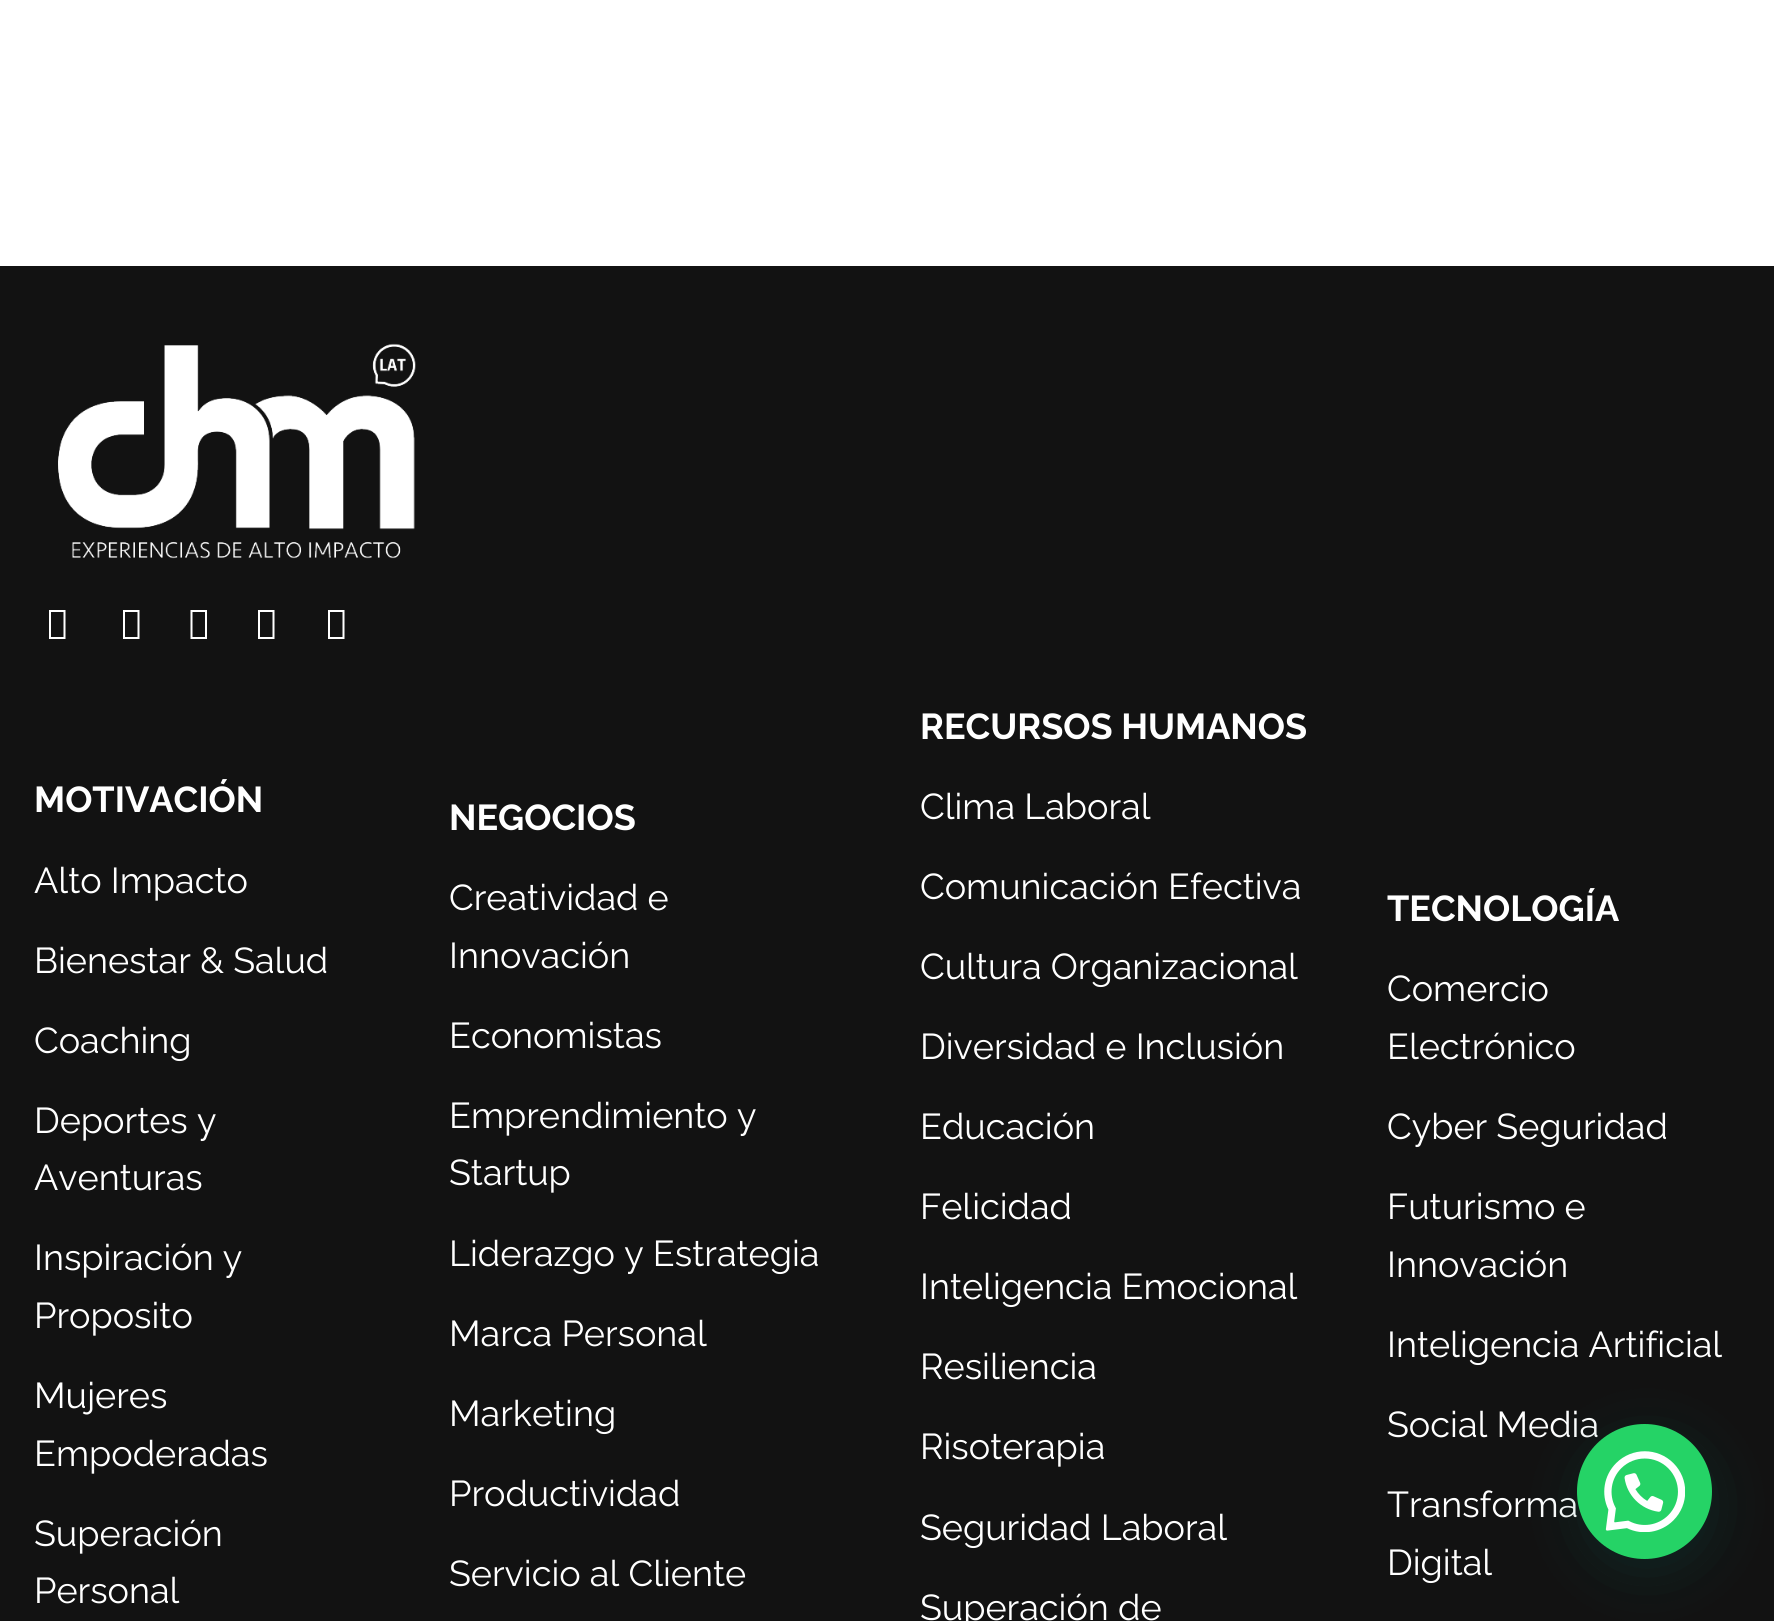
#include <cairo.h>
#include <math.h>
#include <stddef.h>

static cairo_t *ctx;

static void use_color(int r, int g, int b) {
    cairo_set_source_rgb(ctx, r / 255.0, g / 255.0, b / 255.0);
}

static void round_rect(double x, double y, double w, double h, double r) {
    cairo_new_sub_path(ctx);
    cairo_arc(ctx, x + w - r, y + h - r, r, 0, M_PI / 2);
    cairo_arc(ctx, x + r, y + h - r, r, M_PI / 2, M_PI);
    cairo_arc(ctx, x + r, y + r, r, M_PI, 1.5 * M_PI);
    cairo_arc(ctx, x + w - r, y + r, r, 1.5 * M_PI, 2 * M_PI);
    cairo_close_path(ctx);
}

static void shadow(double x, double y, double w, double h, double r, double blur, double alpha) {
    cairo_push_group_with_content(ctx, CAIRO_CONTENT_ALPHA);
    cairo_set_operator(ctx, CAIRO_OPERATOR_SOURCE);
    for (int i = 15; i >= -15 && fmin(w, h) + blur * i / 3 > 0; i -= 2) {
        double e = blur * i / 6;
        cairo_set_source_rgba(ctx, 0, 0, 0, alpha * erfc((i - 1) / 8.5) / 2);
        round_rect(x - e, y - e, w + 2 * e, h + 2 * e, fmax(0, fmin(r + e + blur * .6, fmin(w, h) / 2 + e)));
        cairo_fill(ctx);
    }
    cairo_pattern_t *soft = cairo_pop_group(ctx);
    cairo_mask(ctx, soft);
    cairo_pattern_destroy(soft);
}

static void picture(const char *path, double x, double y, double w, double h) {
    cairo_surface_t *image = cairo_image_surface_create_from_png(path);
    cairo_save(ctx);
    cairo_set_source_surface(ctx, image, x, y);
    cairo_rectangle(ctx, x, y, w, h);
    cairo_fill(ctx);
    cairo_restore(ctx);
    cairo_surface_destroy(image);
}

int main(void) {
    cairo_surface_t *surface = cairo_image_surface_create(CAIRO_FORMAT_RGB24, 1774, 1621);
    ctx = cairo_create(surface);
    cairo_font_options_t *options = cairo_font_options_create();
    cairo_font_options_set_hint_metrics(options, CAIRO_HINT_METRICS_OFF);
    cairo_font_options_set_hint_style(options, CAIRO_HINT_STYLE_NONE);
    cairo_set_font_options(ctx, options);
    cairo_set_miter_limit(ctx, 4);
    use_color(255, 255, 255);
    cairo_paint(ctx);
    use_color(18, 18, 18);
    cairo_rectangle(ctx, 0, 266, 1774, 1355);
    cairo_fill(ctx);
    picture("img1.png", 58, 343, 358, 216);
    use_color(255, 255, 255);
    cairo_new_path(ctx);
    cairo_move_to(ctx, 49, 639);
    cairo_line_to(ctx, 49, 610);
    cairo_line_to(ctx, 65.5, 610);
    cairo_line_to(ctx, 65.5, 639);
    cairo_close_path(ctx);
    cairo_move_to(ctx, 51, 637);
    cairo_line_to(ctx, 63.5, 637);
    cairo_line_to(ctx, 63.5, 612);
    cairo_line_to(ctx, 51, 612);
    cairo_close_path(ctx);
    cairo_fill(ctx);
    cairo_new_path(ctx);
    cairo_move_to(ctx, 123, 639);
    cairo_line_to(ctx, 123, 610);
    cairo_line_to(ctx, 139.5, 610);
    cairo_line_to(ctx, 139.5, 639);
    cairo_close_path(ctx);
    cairo_move_to(ctx, 125, 637);
    cairo_line_to(ctx, 137.5, 637);
    cairo_line_to(ctx, 137.5, 612);
    cairo_line_to(ctx, 125, 612);
    cairo_close_path(ctx);
    cairo_fill(ctx);
    cairo_new_path(ctx);
    cairo_move_to(ctx, 190.5, 639);
    cairo_line_to(ctx, 190.5, 610);
    cairo_line_to(ctx, 207, 610);
    cairo_line_to(ctx, 207, 639);
    cairo_close_path(ctx);
    cairo_move_to(ctx, 192.5, 637);
    cairo_line_to(ctx, 205, 637);
    cairo_line_to(ctx, 205, 612);
    cairo_line_to(ctx, 192.5, 612);
    cairo_close_path(ctx);
    cairo_fill(ctx);
    cairo_new_path(ctx);
    cairo_move_to(ctx, 258, 639);
    cairo_line_to(ctx, 258, 610);
    cairo_line_to(ctx, 274.5, 610);
    cairo_line_to(ctx, 274.5, 639);
    cairo_close_path(ctx);
    cairo_move_to(ctx, 260, 637);
    cairo_line_to(ctx, 272.5, 637);
    cairo_line_to(ctx, 272.5, 612);
    cairo_line_to(ctx, 260, 612);
    cairo_close_path(ctx);
    cairo_fill(ctx);
    cairo_new_path(ctx);
    cairo_move_to(ctx, 328, 639);
    cairo_line_to(ctx, 328, 610);
    cairo_line_to(ctx, 344.5, 610);
    cairo_line_to(ctx, 344.5, 639);
    cairo_close_path(ctx);
    cairo_move_to(ctx, 330, 637);
    cairo_line_to(ctx, 342.5, 637);
    cairo_line_to(ctx, 342.5, 612);
    cairo_line_to(ctx, 330, 612);
    cairo_close_path(ctx);
    cairo_fill(ctx);
    cairo_select_font_face(ctx, "Raleway", CAIRO_FONT_SLANT_NORMAL, CAIRO_FONT_WEIGHT_BOLD);
    cairo_set_font_size(ctx, 36);
    cairo_move_to(ctx, 34, 812);
    cairo_show_text(ctx, "MOTIVACIÓN");
    cairo_select_font_face(ctx, "Raleway", CAIRO_FONT_SLANT_NORMAL, CAIRO_FONT_WEIGHT_NORMAL);
    cairo_move_to(ctx, 34, 893);
    cairo_show_text(ctx, "Alto Impacto");
    cairo_move_to(ctx, 34, 973);
    cairo_show_text(ctx, "Bienestar & Salud");
    cairo_move_to(ctx, 34, 1053);
    cairo_show_text(ctx, "Coaching");
    cairo_move_to(ctx, 34, 1133);
    cairo_show_text(ctx, "Deportes y");
    cairo_move_to(ctx, 34, 1190);
    cairo_show_text(ctx, "Aventuras");
    cairo_move_to(ctx, 34, 1270);
    cairo_show_text(ctx, "Inspiración y");
    cairo_move_to(ctx, 34, 1328);
    cairo_show_text(ctx, "Proposito");
    cairo_move_to(ctx, 34, 1408);
    cairo_show_text(ctx, "Mujeres");
    cairo_move_to(ctx, 34, 1466);
    cairo_show_text(ctx, "Empoderadas");
    cairo_move_to(ctx, 34, 1546);
    cairo_show_text(ctx, "Superación");
    cairo_move_to(ctx, 34, 1603);
    cairo_show_text(ctx, "Personal");
    cairo_select_font_face(ctx, "Raleway", CAIRO_FONT_SLANT_NORMAL, CAIRO_FONT_WEIGHT_BOLD);
    cairo_move_to(ctx, 449, 830);
    cairo_show_text(ctx, "NEGOCIOS");
    cairo_select_font_face(ctx, "Raleway", CAIRO_FONT_SLANT_NORMAL, CAIRO_FONT_WEIGHT_NORMAL);
    cairo_move_to(ctx, 449, 910);
    cairo_show_text(ctx, "Creatividad e");
    cairo_move_to(ctx, 449, 968);
    cairo_show_text(ctx, "Innovación");
    cairo_move_to(ctx, 449, 1048);
    cairo_show_text(ctx, "Economistas");
    cairo_move_to(ctx, 449, 1128);
    cairo_show_text(ctx, "Emprendimiento y");
    cairo_move_to(ctx, 449, 1185);
    cairo_show_text(ctx, "Startup");
    cairo_move_to(ctx, 449, 1266);
    cairo_show_text(ctx, "Liderazgo y Estrategia");
    cairo_move_to(ctx, 449, 1346);
    cairo_show_text(ctx, "Marca Personal");
    cairo_move_to(ctx, 449, 1426);
    cairo_show_text(ctx, "Marketing");
    cairo_move_to(ctx, 449, 1506);
    cairo_show_text(ctx, "Productividad");
    cairo_move_to(ctx, 449, 1586);
    cairo_show_text(ctx, "Servicio al Cliente");
    cairo_select_font_face(ctx, "Raleway", CAIRO_FONT_SLANT_NORMAL, CAIRO_FONT_WEIGHT_BOLD);
    cairo_move_to(ctx, 920, 739);
    cairo_show_text(ctx, "RECURSOS HUMANOS");
    cairo_select_font_face(ctx, "Raleway", CAIRO_FONT_SLANT_NORMAL, CAIRO_FONT_WEIGHT_NORMAL);
    cairo_move_to(ctx, 920, 819);
    cairo_show_text(ctx, "Clima Laboral");
    cairo_move_to(ctx, 920, 899);
    cairo_show_text(ctx, "Comunicación Efectiva");
    cairo_move_to(ctx, 920, 979);
    cairo_show_text(ctx, "Cultura Organizacional");
    cairo_move_to(ctx, 920, 1059);
    cairo_show_text(ctx, "Diversidad e Inclusión");
    cairo_move_to(ctx, 920, 1139);
    cairo_show_text(ctx, "Educación");
    cairo_move_to(ctx, 920, 1219);
    cairo_show_text(ctx, "Felicidad");
    cairo_move_to(ctx, 920, 1299);
    cairo_show_text(ctx, "Inteligencia Emocional");
    cairo_move_to(ctx, 920, 1379);
    cairo_show_text(ctx, "Resiliencia");
    cairo_move_to(ctx, 920, 1459);
    cairo_show_text(ctx, "Risoterapia");
    cairo_move_to(ctx, 920, 1540);
    cairo_show_text(ctx, "Seguridad Laboral");
    cairo_move_to(ctx, 920, 1620);
    cairo_show_text(ctx, "Superación de");
    cairo_select_font_face(ctx, "Raleway", CAIRO_FONT_SLANT_NORMAL, CAIRO_FONT_WEIGHT_BOLD);
    cairo_move_to(ctx, 1387, 921);
    cairo_show_text(ctx, "TECNOLOGÍA");
    cairo_select_font_face(ctx, "Raleway", CAIRO_FONT_SLANT_NORMAL, CAIRO_FONT_WEIGHT_NORMAL);
    cairo_move_to(ctx, 1387, 1001);
    cairo_show_text(ctx, "Comercio");
    cairo_move_to(ctx, 1387, 1059);
    cairo_show_text(ctx, "Electrónico");
    cairo_move_to(ctx, 1387, 1139);
    cairo_show_text(ctx, "Cyber Seguridad");
    cairo_move_to(ctx, 1387, 1219);
    cairo_show_text(ctx, "Futurismo e");
    cairo_move_to(ctx, 1387, 1277);
    cairo_show_text(ctx, "Innovación");
    cairo_move_to(ctx, 1387, 1357);
    cairo_show_text(ctx, "Inteligencia Artificial");
    cairo_move_to(ctx, 1387, 1437);
    cairo_show_text(ctx, "Social Media");
    cairo_move_to(ctx, 1387, 1517);
    cairo_show_text(ctx, "Transforma");
    cairo_move_to(ctx, 1387, 1575);
    cairo_show_text(ctx, "Digital");
    use_color(7, 94, 84);
    shadow(1580, 1438, 135, 135, 67.5, 27, 0.24);
    use_color(37, 211, 102);
    cairo_arc(ctx, 1644.5, 1491.5, 67.5, 0, 2 * M_PI);
    cairo_fill(ctx);
    picture("img2.png", 1604, 1451, 81, 81);
    cairo_surface_write_to_png(surface, "result.png");
    cairo_font_options_destroy(options);
    cairo_destroy(ctx);
    cairo_surface_destroy(surface);
    return 0;
}
